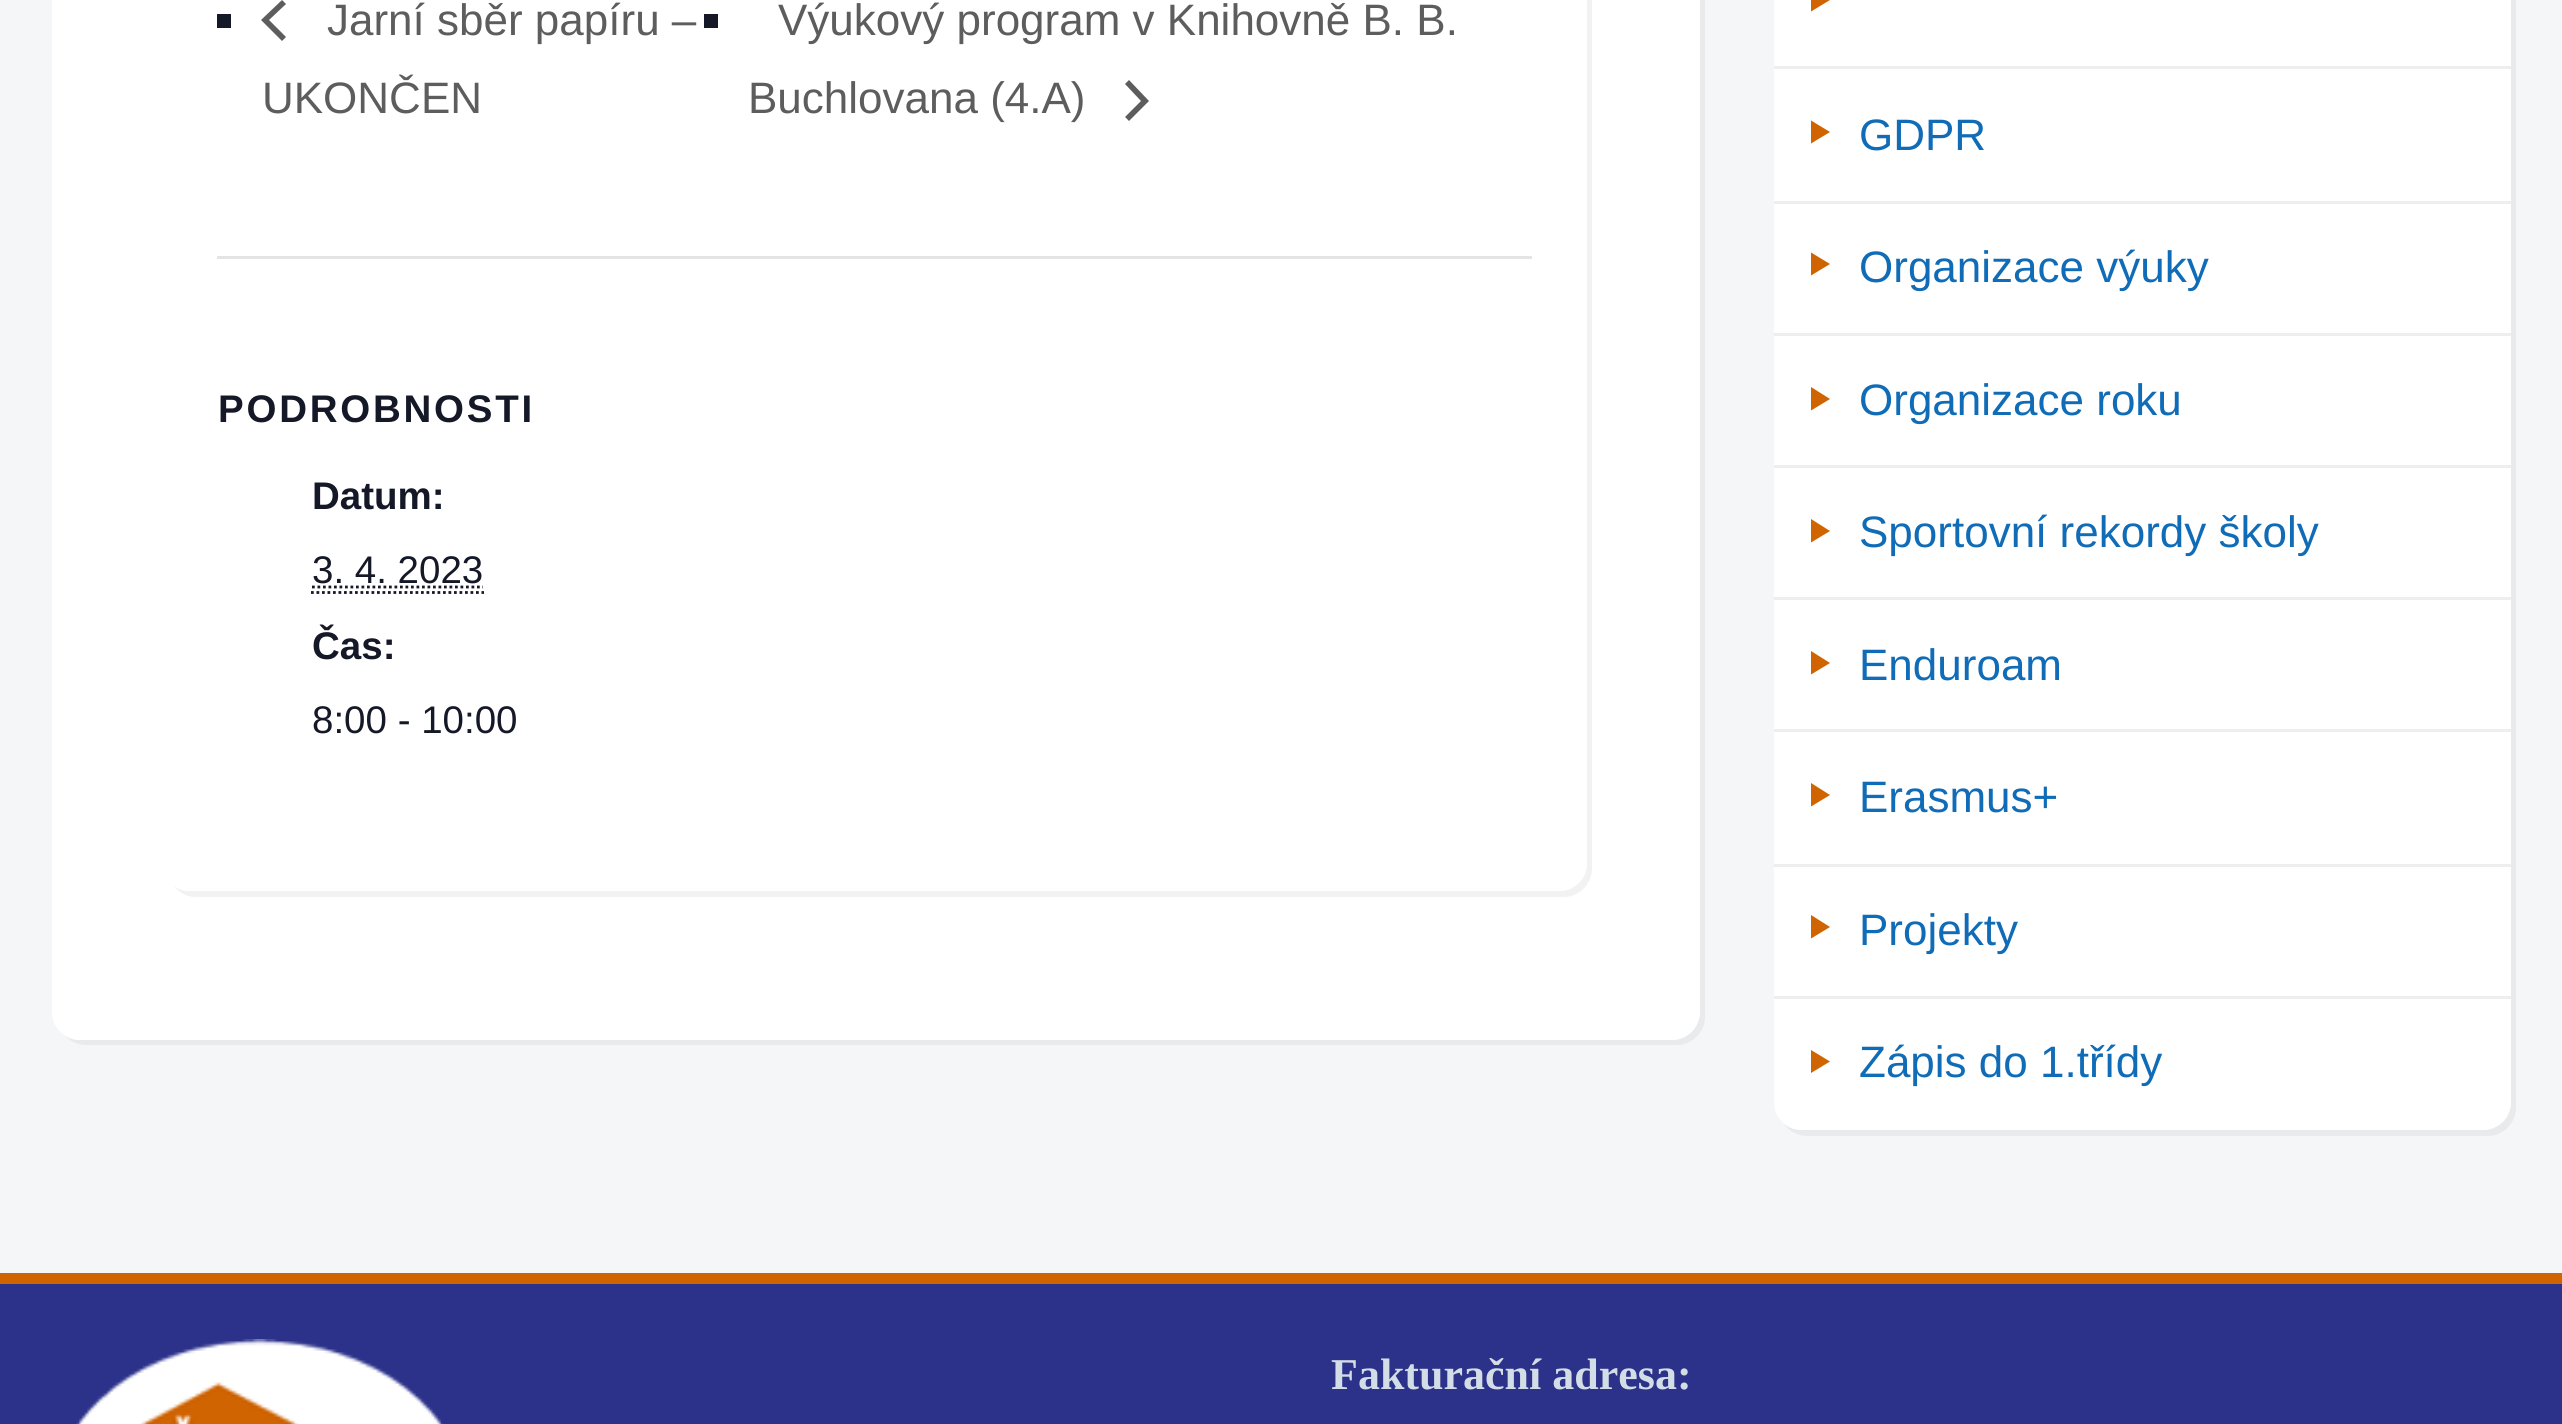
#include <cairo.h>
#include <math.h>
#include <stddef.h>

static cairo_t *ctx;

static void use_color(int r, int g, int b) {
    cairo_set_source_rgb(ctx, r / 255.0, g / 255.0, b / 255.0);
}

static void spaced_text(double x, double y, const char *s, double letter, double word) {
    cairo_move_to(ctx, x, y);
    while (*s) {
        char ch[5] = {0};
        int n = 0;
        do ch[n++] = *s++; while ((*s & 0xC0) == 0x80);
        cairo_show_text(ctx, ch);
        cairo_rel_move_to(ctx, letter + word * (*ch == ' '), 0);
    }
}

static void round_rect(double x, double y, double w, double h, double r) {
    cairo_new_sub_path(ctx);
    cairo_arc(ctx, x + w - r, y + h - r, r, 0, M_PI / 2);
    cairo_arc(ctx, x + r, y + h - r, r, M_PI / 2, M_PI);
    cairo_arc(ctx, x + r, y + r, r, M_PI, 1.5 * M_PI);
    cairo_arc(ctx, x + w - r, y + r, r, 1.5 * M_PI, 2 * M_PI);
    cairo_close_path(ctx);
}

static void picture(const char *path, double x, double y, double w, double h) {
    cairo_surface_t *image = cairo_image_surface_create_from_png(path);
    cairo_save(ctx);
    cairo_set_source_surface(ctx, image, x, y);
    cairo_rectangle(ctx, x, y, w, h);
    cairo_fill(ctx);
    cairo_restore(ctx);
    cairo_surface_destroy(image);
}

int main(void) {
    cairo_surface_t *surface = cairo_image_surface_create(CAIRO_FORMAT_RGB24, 2562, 1424);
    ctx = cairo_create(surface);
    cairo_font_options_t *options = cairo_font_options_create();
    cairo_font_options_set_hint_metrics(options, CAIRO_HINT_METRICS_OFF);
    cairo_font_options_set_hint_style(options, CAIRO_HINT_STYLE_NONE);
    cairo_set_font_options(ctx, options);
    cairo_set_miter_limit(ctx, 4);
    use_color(244, 246, 248);
    cairo_paint(ctx);
    use_color(232, 234, 236);
    cairo_new_path(ctx);
    cairo_move_to(ctx, 64, 1035);
    cairo_curve_to(ctx, 70, 1041, 77, 1045, 86, 1045);
    cairo_line_to(ctx, 1677, 1045);
    cairo_curve_to(ctx, 1692, 1045, 1705, 1032, 1705, 1017);
    cairo_line_to(ctx, 1705, -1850);
    cairo_curve_to(ctx, 1705, -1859, 1701, -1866, 1695, -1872);
    cairo_curve_to(ctx, 1698, -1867, 1700, -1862, 1700, -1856);
    cairo_line_to(ctx, 1700, 1012);
    cairo_curve_to(ctx, 1700, 1027, 1687, 1040, 1672, 1040);
    cairo_line_to(ctx, 80, 1040);
    cairo_curve_to(ctx, 74, 1040, 69, 1038, 64, 1035);
    cairo_close_path(ctx);
    cairo_fill(ctx);
    use_color(255, 255, 255);
    round_rect(52, -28, 1648, 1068, 28);
    cairo_fill(ctx);
    use_color(242, 242, 242);
    cairo_new_path(ctx);
    cairo_move_to(ctx, 174, 886);
    cairo_curve_to(ctx, 179, 893, 187, 897, 196, 897);
    cairo_line_to(ctx, 1564, 897);
    cairo_curve_to(ctx, 1579, 897, 1592, 884, 1592, 869);
    cairo_line_to(ctx, 1592, -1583);
    cairo_curve_to(ctx, 1592, -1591, 1588, -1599, 1583, -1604);
    cairo_curve_to(ctx, 1585, -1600, 1587, -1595, 1587, -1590);
    cairo_line_to(ctx, 1587, 864);
    cairo_curve_to(ctx, 1587, 879, 1574, 891, 1559, 891);
    cairo_line_to(ctx, 190, 891);
    cairo_curve_to(ctx, 184, 891, 178, 889, 174, 886);
    cairo_close_path(ctx);
    cairo_fill(ctx);
    use_color(255, 255, 255);
    round_rect(162, -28, 1425, 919, 28);
    cairo_fill(ctx);
    use_color(20, 24, 39);
    cairo_rectangle(ctx, 217, 14, 14, 14);
    cairo_fill(ctx);
    use_color(93, 93, 93);
    cairo_new_path(ctx);
    cairo_move_to(ctx, 286, 37);
    cairo_line_to(ctx, 282, 41);
    cairo_line_to(ctx, 261, 20);
    cairo_line_to(ctx, 282, 0);
    cairo_line_to(ctx, 286, 4);
    cairo_line_to(ctx, 269, 20);
    cairo_close_path(ctx);
    cairo_fill(ctx);
    cairo_select_font_face(ctx, "Liberation Sans", CAIRO_FONT_SLANT_NORMAL, CAIRO_FONT_WEIGHT_NORMAL);
    cairo_set_font_size(ctx, 44);
    cairo_move_to(ctx, 327, 35);
    cairo_show_text(ctx, "Jarní sběr papíru –");
    cairo_move_to(ctx, 262, 113);
    cairo_show_text(ctx, "UKONČEN");
    use_color(20, 24, 39);
    cairo_rectangle(ctx, 704, 14, 14, 14);
    cairo_fill(ctx);
    use_color(93, 93, 93);
    cairo_move_to(ctx, 778, 35);
    cairo_show_text(ctx, "Výukový program v Knihovně B. B.");
    cairo_move_to(ctx, 748, 113);
    cairo_show_text(ctx, "Buchlovana (4.A)");
    cairo_new_path(ctx);
    cairo_move_to(ctx, 1125, 84);
    cairo_line_to(ctx, 1129, 80);
    cairo_line_to(ctx, 1149, 101);
    cairo_line_to(ctx, 1129, 121);
    cairo_line_to(ctx, 1125, 117);
    cairo_line_to(ctx, 1141, 101);
    cairo_close_path(ctx);
    cairo_fill(ctx);
    use_color(228, 228, 228);
    cairo_rectangle(ctx, 217, 256, 1315, 3);
    cairo_fill(ctx);
    cairo_select_font_face(ctx, "Liberation Sans", CAIRO_FONT_SLANT_NORMAL, CAIRO_FONT_WEIGHT_BOLD);
    cairo_set_font_size(ctx, 38.5);
    use_color(20, 24, 39);
    spaced_text(218, 422, "PODROBNOSTI", 2.75, 0);
    cairo_move_to(ctx, 312, 509);
    cairo_show_text(ctx, "Datum:");
    cairo_select_font_face(ctx, "Liberation Sans", CAIRO_FONT_SLANT_NORMAL, CAIRO_FONT_WEIGHT_NORMAL);
    cairo_move_to(ctx, 312, 583);
    cairo_show_text(ctx, "3. 4. 2023");
    cairo_new_path(ctx);
    cairo_move_to(ctx, 311, 592.5);
    cairo_line_to(ctx, 484, 592.5);
    cairo_set_line_width(ctx, 2.8);
    cairo_set_dash(ctx, (double[]){2.75, 2.75}, 2, 0);
    cairo_stroke(ctx);
    cairo_new_path(ctx);
    cairo_move_to(ctx, 312, 587);
    cairo_line_to(ctx, 483, 587);
    cairo_stroke(ctx);
    cairo_select_font_face(ctx, "Liberation Sans", CAIRO_FONT_SLANT_NORMAL, CAIRO_FONT_WEIGHT_BOLD);
    cairo_move_to(ctx, 312, 659);
    cairo_show_text(ctx, "Čas:");
    cairo_select_font_face(ctx, "Liberation Sans", CAIRO_FONT_SLANT_NORMAL, CAIRO_FONT_WEIGHT_NORMAL);
    cairo_move_to(ctx, 312, 733);
    cairo_show_text(ctx, "8:00 - 10:00");
    use_color(232, 234, 236);
    cairo_new_path(ctx);
    cairo_move_to(ctx, 1784, 1124);
    cairo_curve_to(ctx, 1789, 1131, 1798, 1136, 1807, 1136);
    cairo_line_to(ctx, 2488, 1136);
    cairo_curve_to(ctx, 2503, 1136, 2516, 1123, 2516, 1108);
    cairo_line_to(ctx, 2516, -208);
    cairo_curve_to(ctx, 2516, -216, 2512, -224, 2507, -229);
    cairo_curve_to(ctx, 2509, -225, 2511, -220, 2511, -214);
    cairo_line_to(ctx, 2511, 1103);
    cairo_curve_to(ctx, 2511, 1118, 2498, 1130, 2483, 1130);
    cairo_line_to(ctx, 1801, 1130);
    cairo_curve_to(ctx, 1795, 1130, 1789, 1128, 1784, 1124);
    cairo_close_path(ctx);
    cairo_fill(ctx);
    use_color(255, 255, 255);
    round_rect(1774, -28, 737, 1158, 28);
    cairo_fill(ctx);
    use_color(238, 238, 238);
    cairo_rectangle(ctx, 1774, 66, 737, 3);
    cairo_fill(ctx);
    use_color(207, 100, 0);
    cairo_new_path(ctx);
    cairo_move_to(ctx, 1811, -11.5);
    cairo_line_to(ctx, 1830, 0);
    cairo_line_to(ctx, 1811, 11.5);
    cairo_close_path(ctx);
    cairo_fill(ctx);
    use_color(238, 238, 238);
    cairo_rectangle(ctx, 1774, 201, 737, 3);
    cairo_fill(ctx);
    use_color(207, 100, 0);
    cairo_new_path(ctx);
    cairo_move_to(ctx, 1811, 120.5);
    cairo_line_to(ctx, 1830, 132);
    cairo_line_to(ctx, 1811, 143.5);
    cairo_close_path(ctx);
    cairo_fill(ctx);
    cairo_set_font_size(ctx, 44);
    use_color(16, 108, 183);
    cairo_move_to(ctx, 1859, 150);
    cairo_show_text(ctx, "GDPR");
    use_color(238, 238, 238);
    cairo_rectangle(ctx, 1774, 333, 737, 3);
    cairo_fill(ctx);
    use_color(207, 100, 0);
    cairo_new_path(ctx);
    cairo_move_to(ctx, 1811, 252.5);
    cairo_line_to(ctx, 1830, 264);
    cairo_line_to(ctx, 1811, 275.5);
    cairo_close_path(ctx);
    cairo_fill(ctx);
    use_color(16, 108, 183);
    cairo_move_to(ctx, 1859, 282);
    cairo_show_text(ctx, "Organizace výuky");
    use_color(238, 238, 238);
    cairo_rectangle(ctx, 1774, 465, 737, 3);
    cairo_fill(ctx);
    use_color(207, 100, 0);
    cairo_new_path(ctx);
    cairo_move_to(ctx, 1811, 387);
    cairo_line_to(ctx, 1830, 399);
    cairo_line_to(ctx, 1811, 410.5);
    cairo_close_path(ctx);
    cairo_fill(ctx);
    use_color(16, 108, 183);
    cairo_move_to(ctx, 1859, 415);
    cairo_show_text(ctx, "Organizace roku");
    use_color(238, 238, 238);
    cairo_rectangle(ctx, 1774, 597, 737, 3);
    cairo_fill(ctx);
    use_color(207, 100, 0);
    cairo_new_path(ctx);
    cairo_move_to(ctx, 1811, 519);
    cairo_line_to(ctx, 1830, 531);
    cairo_line_to(ctx, 1811, 542.5);
    cairo_close_path(ctx);
    cairo_fill(ctx);
    use_color(16, 108, 183);
    cairo_move_to(ctx, 1859, 547);
    cairo_show_text(ctx, "Sportovní rekordy školy");
    use_color(238, 238, 238);
    cairo_rectangle(ctx, 1774, 729, 737, 3);
    cairo_fill(ctx);
    use_color(207, 100, 0);
    cairo_new_path(ctx);
    cairo_move_to(ctx, 1811, 651);
    cairo_line_to(ctx, 1830, 663);
    cairo_line_to(ctx, 1811, 674.5);
    cairo_close_path(ctx);
    cairo_fill(ctx);
    use_color(16, 108, 183);
    cairo_move_to(ctx, 1859, 680);
    cairo_show_text(ctx, "Enduroam");
    use_color(238, 238, 238);
    cairo_rectangle(ctx, 1774, 864, 737, 3);
    cairo_fill(ctx);
    use_color(207, 100, 0);
    cairo_new_path(ctx);
    cairo_move_to(ctx, 1811, 783);
    cairo_line_to(ctx, 1830, 795);
    cairo_line_to(ctx, 1811, 806.5);
    cairo_close_path(ctx);
    cairo_fill(ctx);
    use_color(16, 108, 183);
    cairo_move_to(ctx, 1859, 812);
    cairo_show_text(ctx, "Erasmus+");
    use_color(238, 238, 238);
    cairo_rectangle(ctx, 1774, 996, 737, 3);
    cairo_fill(ctx);
    use_color(207, 100, 0);
    cairo_new_path(ctx);
    cairo_move_to(ctx, 1811, 915);
    cairo_line_to(ctx, 1830, 927);
    cairo_line_to(ctx, 1811, 938.5);
    cairo_close_path(ctx);
    cairo_fill(ctx);
    use_color(16, 108, 183);
    cairo_move_to(ctx, 1859, 945);
    cairo_show_text(ctx, "Projekty");
    use_color(207, 100, 0);
    cairo_new_path(ctx);
    cairo_move_to(ctx, 1811, 1050);
    cairo_line_to(ctx, 1830, 1061.5);
    cairo_line_to(ctx, 1811, 1073);
    cairo_close_path(ctx);
    cairo_fill(ctx);
    use_color(16, 108, 183);
    cairo_move_to(ctx, 1859, 1077);
    cairo_show_text(ctx, "Zápis do 1.třídy");
    use_color(44, 50, 138);
    cairo_rectangle(ctx, 0, 1284, 2562, 140);
    cairo_fill(ctx);
    use_color(207, 100, 0);
    cairo_rectangle(ctx, 0, 1273, 2562, 11);
    cairo_fill(ctx);
    picture("img1.png", 76, 1339, 368, 85);
    cairo_select_font_face(ctx, "Liberation Serif", CAIRO_FONT_SLANT_NORMAL, CAIRO_FONT_WEIGHT_BOLD);
    use_color(211, 221, 230);
    cairo_move_to(ctx, 1331, 1389);
    cairo_show_text(ctx, "Fakturační adresa:");
    cairo_surface_write_to_png(surface, "result.png");
    cairo_font_options_destroy(options);
    cairo_destroy(ctx);
    cairo_surface_destroy(surface);
    return 0;
}
